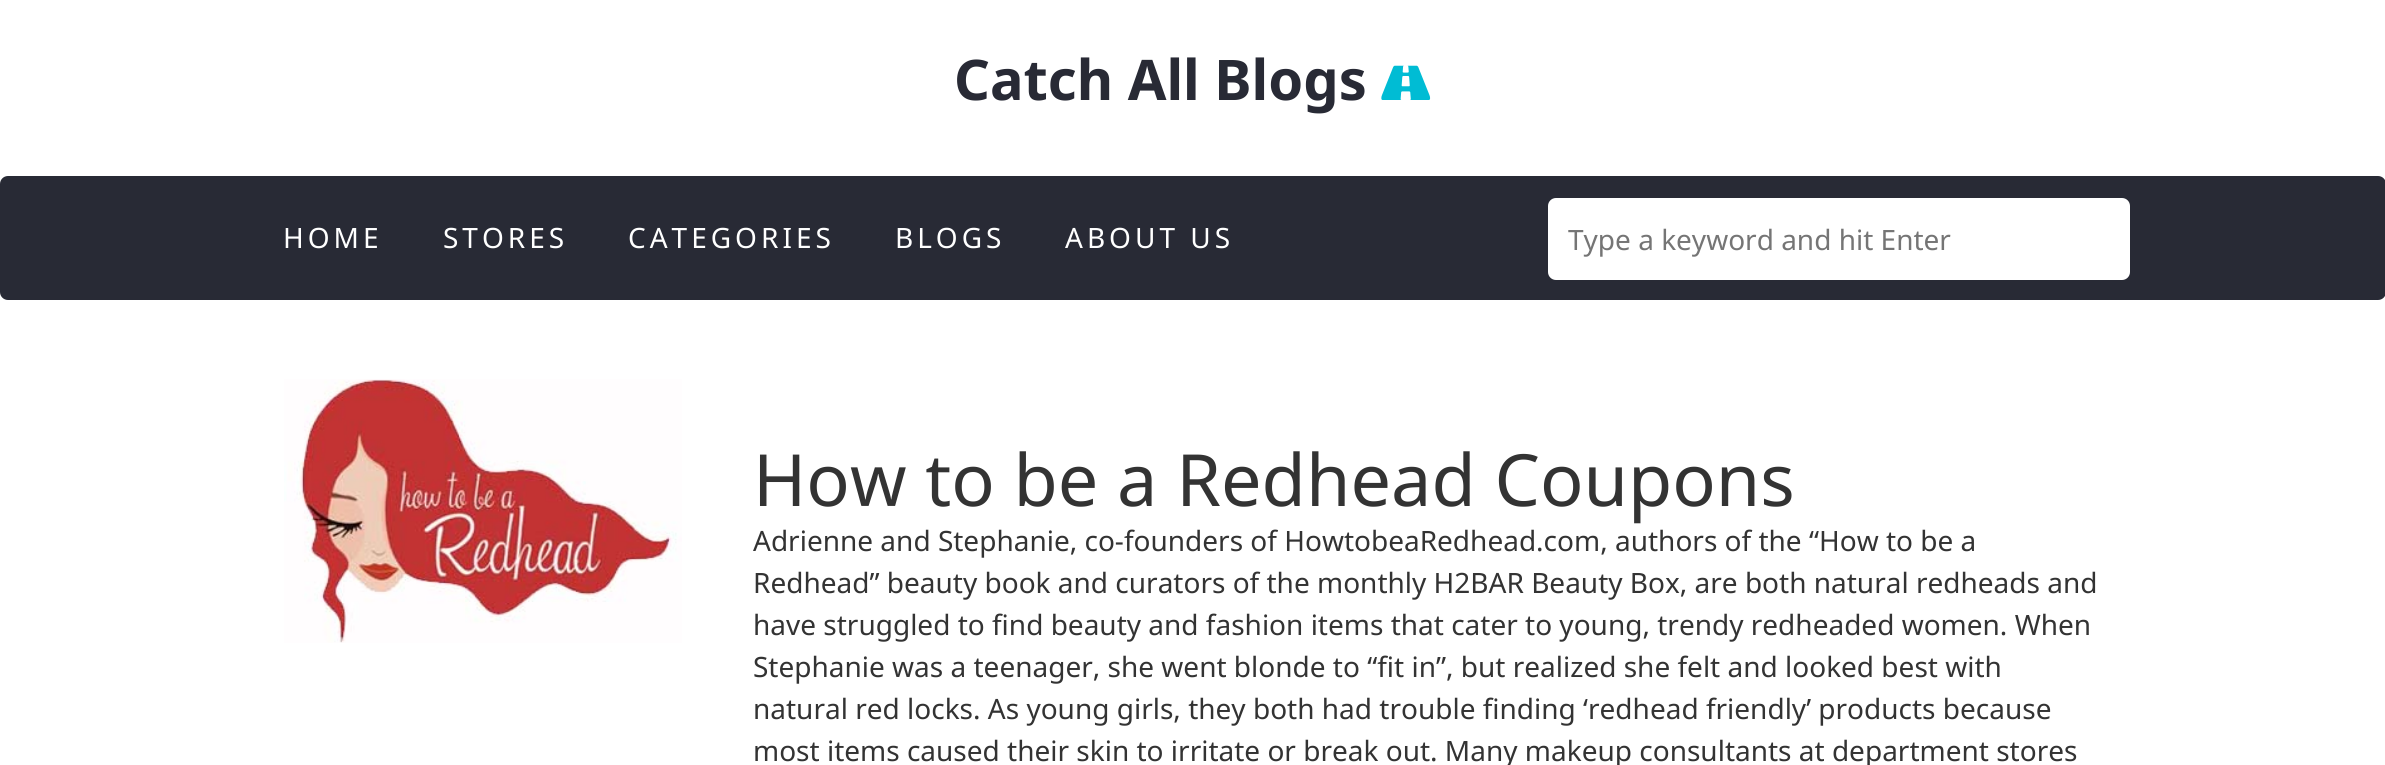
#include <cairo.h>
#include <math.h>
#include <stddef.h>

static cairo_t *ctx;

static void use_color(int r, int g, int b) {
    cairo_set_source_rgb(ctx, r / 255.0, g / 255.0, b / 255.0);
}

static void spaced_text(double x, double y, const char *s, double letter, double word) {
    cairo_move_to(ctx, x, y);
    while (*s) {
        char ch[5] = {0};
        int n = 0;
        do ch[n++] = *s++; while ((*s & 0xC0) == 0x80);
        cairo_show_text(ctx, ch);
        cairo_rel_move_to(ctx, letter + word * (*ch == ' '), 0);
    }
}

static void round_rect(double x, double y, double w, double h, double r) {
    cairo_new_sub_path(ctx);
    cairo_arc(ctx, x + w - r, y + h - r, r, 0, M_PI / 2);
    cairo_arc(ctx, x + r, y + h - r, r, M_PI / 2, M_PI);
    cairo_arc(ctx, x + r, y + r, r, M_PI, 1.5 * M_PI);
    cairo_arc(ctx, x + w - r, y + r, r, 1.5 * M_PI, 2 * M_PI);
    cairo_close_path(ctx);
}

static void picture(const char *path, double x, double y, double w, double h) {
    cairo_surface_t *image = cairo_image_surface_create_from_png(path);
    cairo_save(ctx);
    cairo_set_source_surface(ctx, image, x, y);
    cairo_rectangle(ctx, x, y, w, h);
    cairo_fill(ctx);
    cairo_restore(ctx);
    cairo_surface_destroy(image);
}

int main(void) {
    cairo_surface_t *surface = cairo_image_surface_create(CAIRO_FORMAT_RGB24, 2385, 765);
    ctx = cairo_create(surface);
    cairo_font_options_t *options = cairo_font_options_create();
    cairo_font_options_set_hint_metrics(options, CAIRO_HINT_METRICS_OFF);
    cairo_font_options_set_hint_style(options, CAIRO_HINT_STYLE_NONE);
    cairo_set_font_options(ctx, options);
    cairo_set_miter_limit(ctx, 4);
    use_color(255, 255, 255);
    cairo_paint(ctx);
    cairo_select_font_face(ctx, "Noto Sans", CAIRO_FONT_SLANT_NORMAL, CAIRO_FONT_WEIGHT_BOLD);
    cairo_set_font_size(ctx, 56);
    use_color(40, 42, 53);
    cairo_move_to(ctx, 954, 100);
    cairo_show_text(ctx, "Catch All Blogs");
    picture("img1.png", 1381, 65, 50, 35);
    round_rect(1, 177, 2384, 122, 7);
    cairo_fill_preserve(ctx);
    cairo_stroke(ctx);
    cairo_select_font_face(ctx, "Noto Sans", CAIRO_FONT_SLANT_NORMAL, CAIRO_FONT_WEIGHT_NORMAL);
    cairo_set_font_size(ctx, 28);
    use_color(255, 255, 255);
    spaced_text(283, 248, "HOME", 4, 0);
    spaced_text(443, 248, "STORES", 4, 0);
    spaced_text(628, 248, "CATEGORIES", 4, 0);
    spaced_text(895, 248, "BLOGS", 4, 0);
    spaced_text(1065, 248, "ABOUT US", 4, 0);
    round_rect(1547, 197, 584, 84, 9);
    cairo_fill_preserve(ctx);
    use_color(40, 42, 53);
    cairo_stroke(ctx);
    use_color(117, 117, 117);
    cairo_move_to(ctx, 1568, 250);
    cairo_show_text(ctx, "Type a keyword and hit Enter");
    picture("img2.png", 284, 379, 398, 264);
    cairo_set_font_size(ctx, 72);
    use_color(51, 51, 51);
    cairo_move_to(ctx, 753, 506);
    cairo_show_text(ctx, "How to be a Redhead Coupons");
    cairo_set_font_size(ctx, 28);
    cairo_move_to(ctx, 753, 551);
    cairo_show_text(ctx, "Adrienne and Stephanie, co-founders of HowtobeaRedhead.com, authors of the “How to be a");
    cairo_move_to(ctx, 753, 593);
    cairo_show_text(ctx, "Redhead” beauty book and curators of the monthly H2BAR Beauty Box, are both natural redheads and");
    cairo_move_to(ctx, 753, 635);
    cairo_show_text(ctx, "have struggled to find beauty and fashion items that cater to young, trendy redheaded women. When");
    cairo_move_to(ctx, 753, 677);
    cairo_show_text(ctx, "Stephanie was a teenager, she went blonde to “fit in”, but realized she felt and looked best with");
    cairo_move_to(ctx, 753, 719);
    cairo_show_text(ctx, "natural red locks. As young girls, they both had trouble finding ‘redhead friendly’ products because");
    cairo_move_to(ctx, 753, 761);
    cairo_show_text(ctx, "most items caused their skin to irritate or break out. Many makeup consultants at department stores");
    cairo_surface_write_to_png(surface, "result.png");
    cairo_font_options_destroy(options);
    cairo_destroy(ctx);
    cairo_surface_destroy(surface);
    return 0;
}
